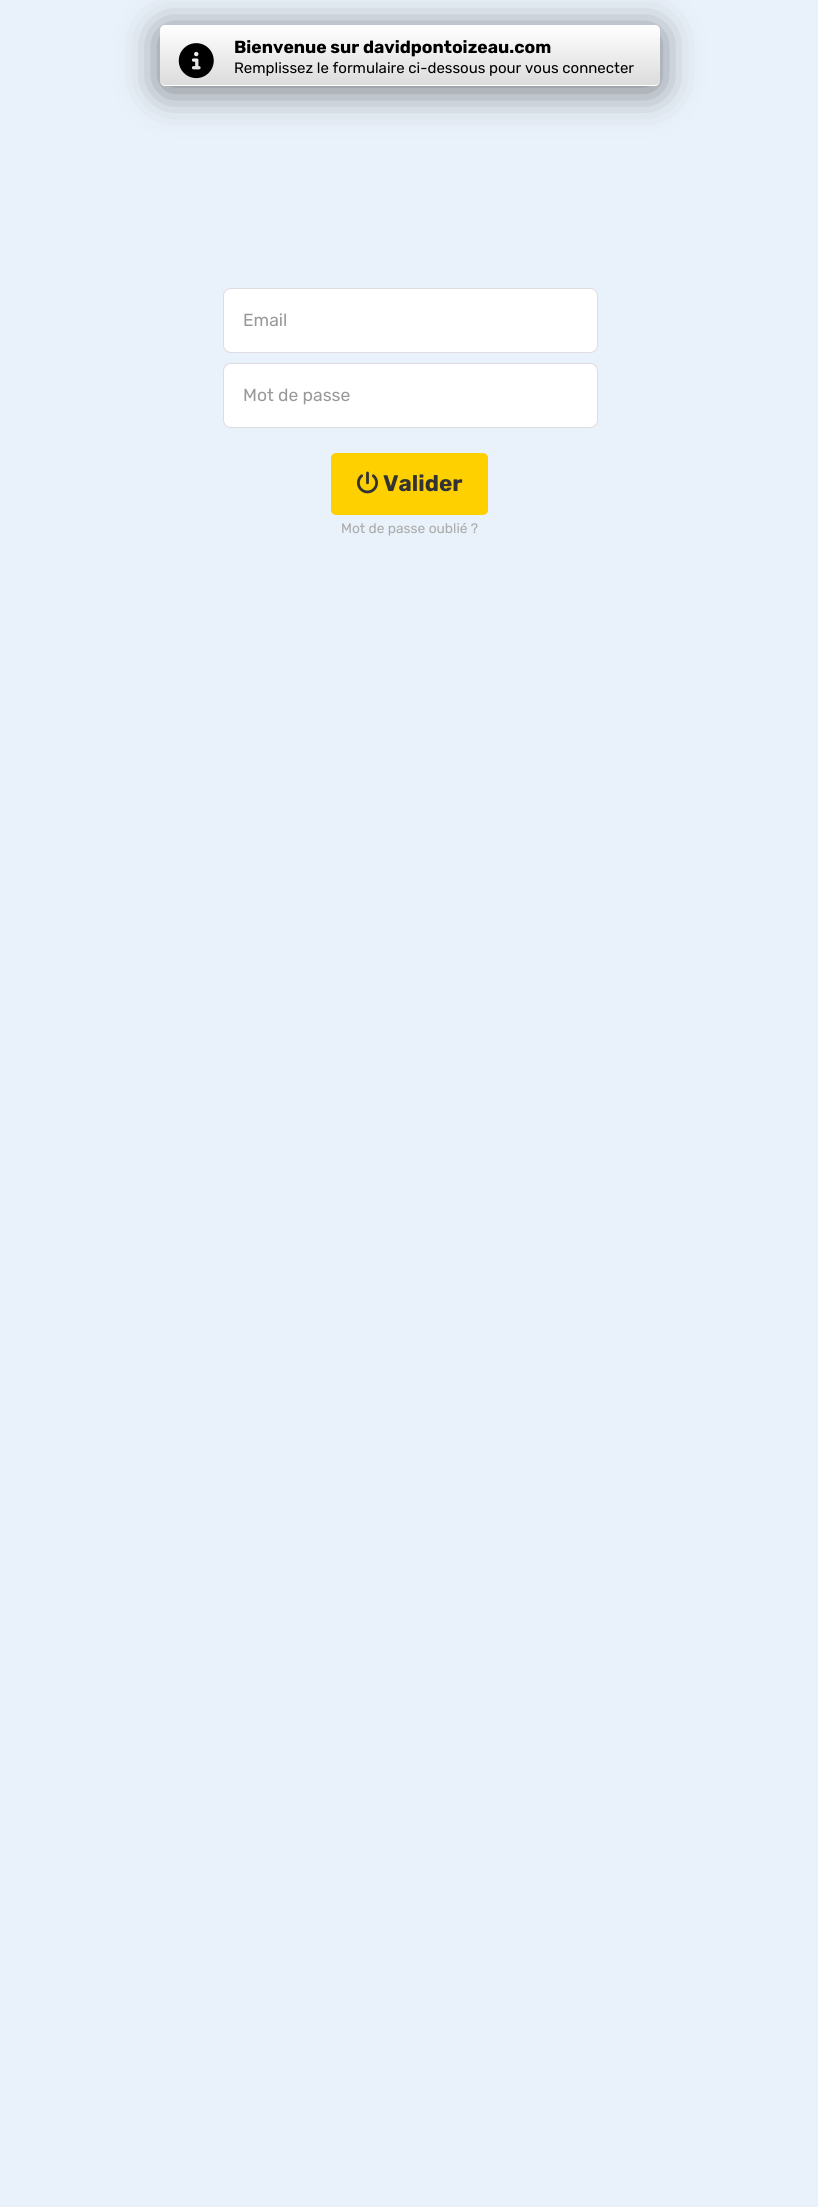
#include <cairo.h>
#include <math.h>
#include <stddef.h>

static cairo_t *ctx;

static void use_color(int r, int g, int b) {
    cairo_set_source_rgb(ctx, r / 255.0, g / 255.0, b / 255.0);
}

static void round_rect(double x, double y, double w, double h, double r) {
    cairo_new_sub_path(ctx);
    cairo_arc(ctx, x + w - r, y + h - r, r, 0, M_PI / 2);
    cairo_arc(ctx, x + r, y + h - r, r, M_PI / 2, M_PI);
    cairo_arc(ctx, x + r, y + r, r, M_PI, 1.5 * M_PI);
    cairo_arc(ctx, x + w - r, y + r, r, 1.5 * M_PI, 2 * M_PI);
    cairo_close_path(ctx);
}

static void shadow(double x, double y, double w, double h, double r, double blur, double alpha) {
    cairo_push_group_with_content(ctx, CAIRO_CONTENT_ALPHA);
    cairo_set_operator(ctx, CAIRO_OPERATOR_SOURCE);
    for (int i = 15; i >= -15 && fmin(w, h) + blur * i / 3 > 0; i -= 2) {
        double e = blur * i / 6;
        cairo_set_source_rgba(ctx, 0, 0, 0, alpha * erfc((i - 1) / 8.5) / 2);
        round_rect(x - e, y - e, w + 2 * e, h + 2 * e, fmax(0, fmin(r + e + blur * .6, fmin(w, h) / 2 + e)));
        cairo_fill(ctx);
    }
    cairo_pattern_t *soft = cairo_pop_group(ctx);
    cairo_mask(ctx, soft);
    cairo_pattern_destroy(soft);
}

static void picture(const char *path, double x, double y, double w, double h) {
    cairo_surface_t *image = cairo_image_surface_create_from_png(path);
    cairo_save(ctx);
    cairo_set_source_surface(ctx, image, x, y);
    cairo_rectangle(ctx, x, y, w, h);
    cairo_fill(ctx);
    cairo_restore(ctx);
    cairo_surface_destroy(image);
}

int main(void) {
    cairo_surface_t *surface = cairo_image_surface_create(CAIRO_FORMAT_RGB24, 818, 2207);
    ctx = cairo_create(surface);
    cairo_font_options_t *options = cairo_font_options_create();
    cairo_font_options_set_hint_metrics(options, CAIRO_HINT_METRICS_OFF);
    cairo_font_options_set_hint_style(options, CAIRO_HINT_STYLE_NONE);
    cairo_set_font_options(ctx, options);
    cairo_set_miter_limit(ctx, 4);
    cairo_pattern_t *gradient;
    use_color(233, 241, 250);
    cairo_paint(ctx);
    use_color(0, 0, 0);
    shadow(160, 30, 500, 61, 5, 19, 0.5);
    gradient = cairo_pattern_create_linear(410, 25, 410, 86);
    cairo_pattern_add_color_stop_rgba(gradient, 0, 1, 1, 1, 1);
    cairo_pattern_add_color_stop_rgba(gradient, 1, 0.859, 0.859, 0.859, 1);
    cairo_set_source(ctx, gradient);
    cairo_pattern_destroy(gradient);
    round_rect(160, 25, 500, 61, 5);
    cairo_fill(ctx);
    use_color(255, 255, 255);
    cairo_new_path(ctx);
    cairo_move_to(ctx, 160, 80);
    cairo_curve_to(ctx, 160, 83, 162, 86, 165, 86);
    cairo_line_to(ctx, 655, 86);
    cairo_curve_to(ctx, 658, 86, 660, 83, 660, 80);
    cairo_curve_to(ctx, 660, 83, 658, 85, 655, 85);
    cairo_line_to(ctx, 165, 85);
    cairo_curve_to(ctx, 162, 85, 160, 83, 160, 80);
    cairo_close_path(ctx);
    cairo_fill(ctx);
    picture("img1.png", 178, 43, 36, 36);
    cairo_select_font_face(ctx, "Rubik", CAIRO_FONT_SLANT_NORMAL, CAIRO_FONT_WEIGHT_BOLD);
    cairo_set_font_size(ctx, 17.5);
    use_color(0, 0, 0);
    cairo_move_to(ctx, 234, 53);
    cairo_show_text(ctx, "Bienvenue sur davidpontoizeau.com");
    cairo_select_font_face(ctx, "Rubik", CAIRO_FONT_SLANT_NORMAL, CAIRO_FONT_WEIGHT_NORMAL);
    cairo_set_font_size(ctx, 15);
    cairo_move_to(ctx, 234, 73);
    cairo_show_text(ctx, "Remplissez le formulaire ci-dessous pour vous connecter");
    use_color(255, 255, 255);
    round_rect(223.5, 288.5, 374, 64, 7.5);
    cairo_fill_preserve(ctx);
    use_color(221, 221, 225);
    cairo_set_line_width(ctx, 1);
    cairo_stroke(ctx);
    cairo_set_font_size(ctx, 17.5);
    use_color(153, 153, 153);
    cairo_move_to(ctx, 243, 326);
    cairo_show_text(ctx, "Email");
    use_color(255, 255, 255);
    round_rect(223.5, 363.5, 374, 64, 7.5);
    cairo_fill_preserve(ctx);
    use_color(221, 221, 225);
    cairo_stroke(ctx);
    use_color(153, 153, 153);
    cairo_move_to(ctx, 243, 401);
    cairo_show_text(ctx, "Mot de passe");
    use_color(255, 208, 0);
    round_rect(331, 453, 157, 62, 5);
    cairo_fill(ctx);
    picture("img2.png", 357, 471, 21, 23);
    cairo_select_font_face(ctx, "Rubik", CAIRO_FONT_SLANT_NORMAL, CAIRO_FONT_WEIGHT_BOLD);
    cairo_set_font_size(ctx, 22.5);
    use_color(51, 51, 51);
    cairo_move_to(ctx, 383, 491);
    cairo_show_text(ctx, "Valider");
    cairo_select_font_face(ctx, "Rubik", CAIRO_FONT_SLANT_NORMAL, CAIRO_FONT_WEIGHT_NORMAL);
    cairo_set_font_size(ctx, 13.75);
    use_color(170, 170, 170);
    cairo_move_to(ctx, 341, 533);
    cairo_show_text(ctx, "Mot de passe oublié ?");
    cairo_surface_write_to_png(surface, "result.png");
    cairo_font_options_destroy(options);
    cairo_destroy(ctx);
    cairo_surface_destroy(surface);
    return 0;
}
